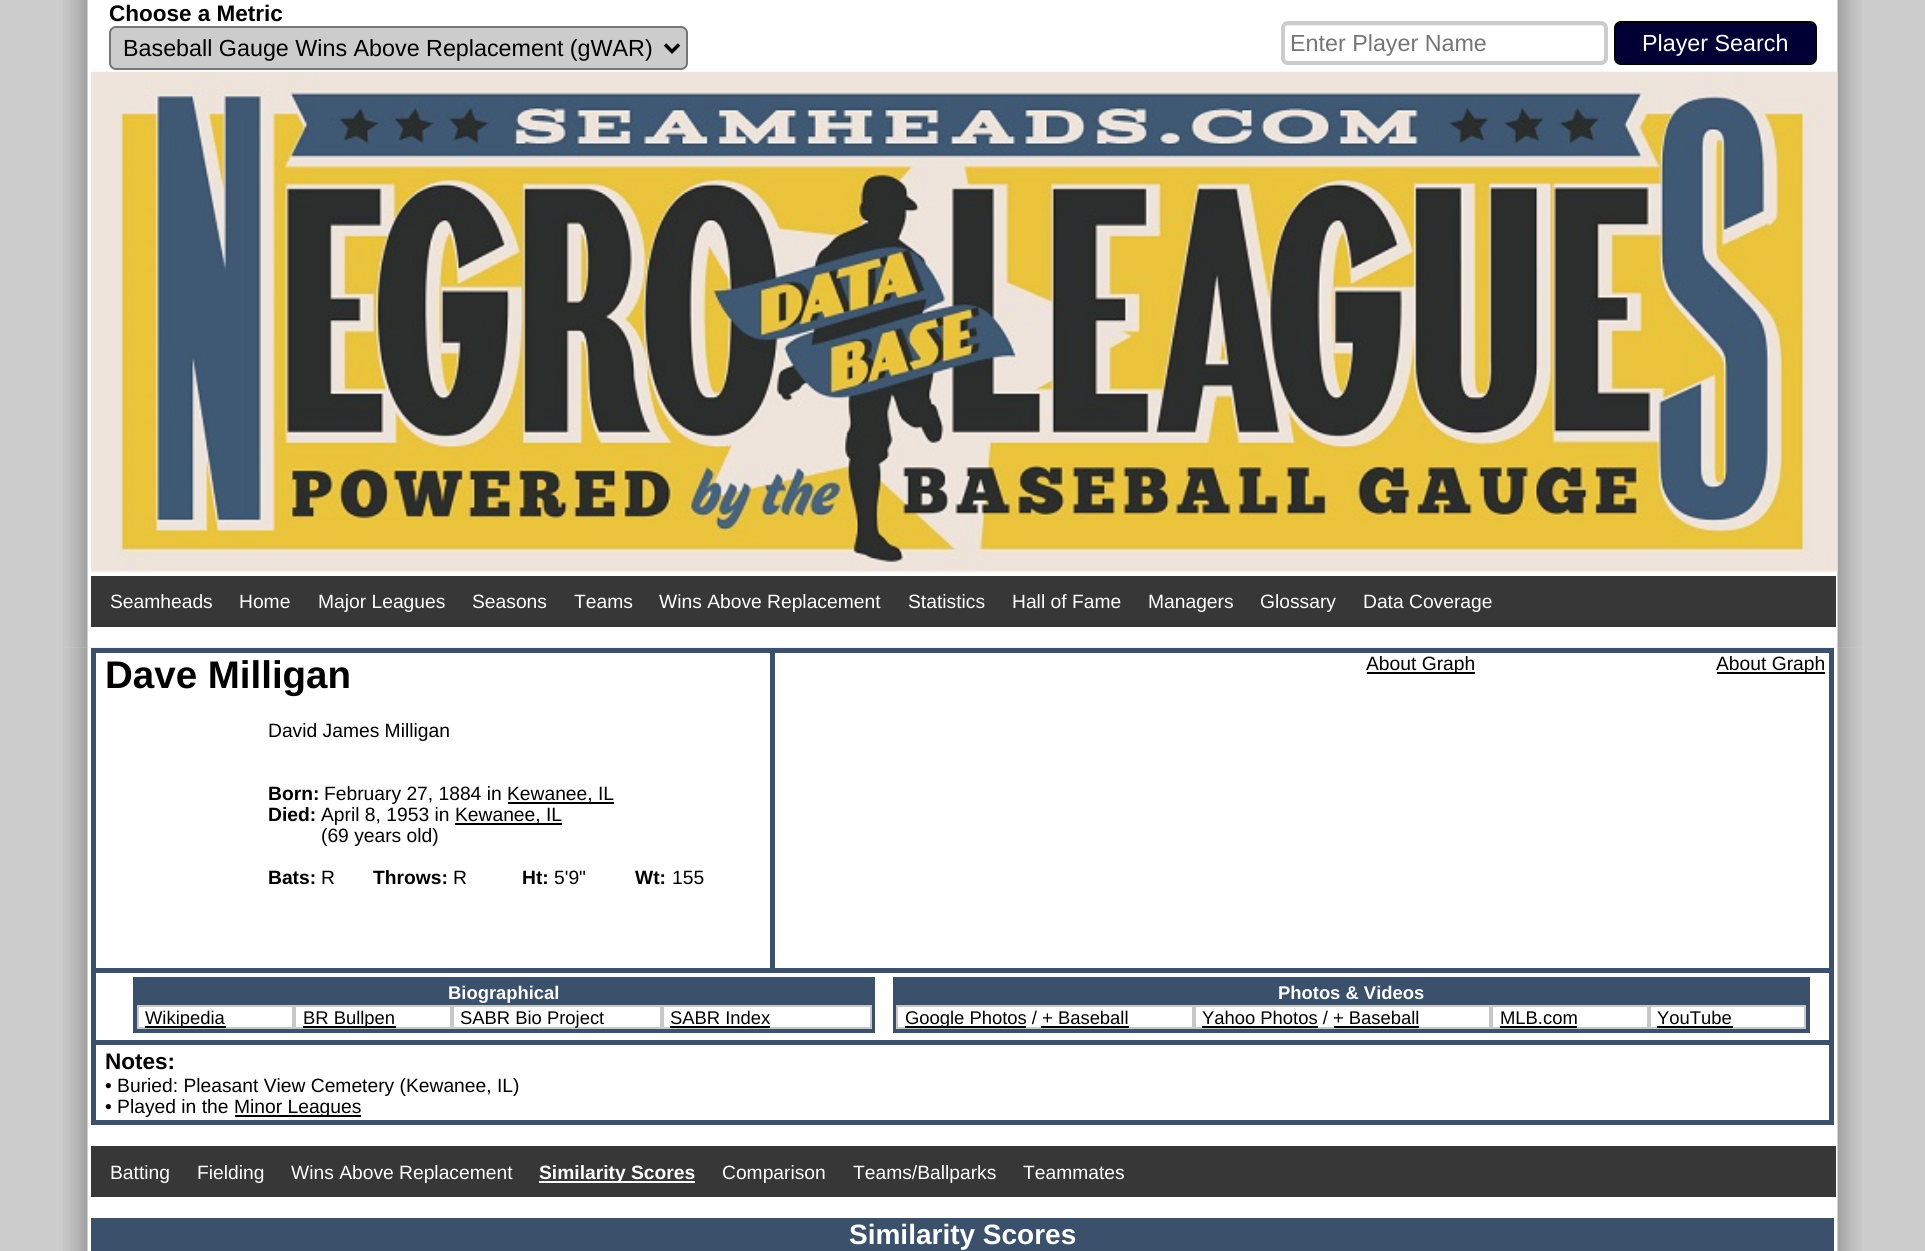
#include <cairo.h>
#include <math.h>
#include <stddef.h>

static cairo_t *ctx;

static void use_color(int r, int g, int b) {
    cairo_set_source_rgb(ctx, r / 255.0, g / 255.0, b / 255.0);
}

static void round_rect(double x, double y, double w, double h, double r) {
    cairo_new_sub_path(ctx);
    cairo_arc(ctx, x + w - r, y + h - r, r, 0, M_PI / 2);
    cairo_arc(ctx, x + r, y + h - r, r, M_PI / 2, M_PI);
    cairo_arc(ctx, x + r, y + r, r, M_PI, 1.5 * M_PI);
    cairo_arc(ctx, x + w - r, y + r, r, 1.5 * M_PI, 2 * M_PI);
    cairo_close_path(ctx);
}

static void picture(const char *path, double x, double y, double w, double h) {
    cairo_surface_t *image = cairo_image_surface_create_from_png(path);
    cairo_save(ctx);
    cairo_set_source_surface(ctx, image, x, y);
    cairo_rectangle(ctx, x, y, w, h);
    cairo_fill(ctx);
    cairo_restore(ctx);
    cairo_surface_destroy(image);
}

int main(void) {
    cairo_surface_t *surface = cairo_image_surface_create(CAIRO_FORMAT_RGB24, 1925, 1251);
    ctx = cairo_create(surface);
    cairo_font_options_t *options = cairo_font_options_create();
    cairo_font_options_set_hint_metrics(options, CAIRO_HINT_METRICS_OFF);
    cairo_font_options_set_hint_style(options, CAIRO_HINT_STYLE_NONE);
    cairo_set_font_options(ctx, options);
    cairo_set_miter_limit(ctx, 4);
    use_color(204, 204, 204);
    cairo_paint(ctx);
    picture("img1.png", 63, 0, 1799, 648);
    cairo_select_font_face(ctx, "Liberation Sans", CAIRO_FONT_SLANT_NORMAL, CAIRO_FONT_WEIGHT_BOLD);
    cairo_set_font_size(ctx, 22.5);
    use_color(0, 0, 0);
    cairo_move_to(ctx, 109, 21);
    cairo_show_text(ctx, "Choose a Metric");
    use_color(204, 204, 204);
    round_rect(110, 27, 577, 42, 6);
    cairo_fill_preserve(ctx);
    use_color(118, 118, 118);
    cairo_stroke(ctx);
    cairo_new_path(ctx);
    cairo_move_to(ctx, 665, 44.5);
    cairo_line_to(ctx, 672, 51.5);
    cairo_line_to(ctx, 679, 44.5);
    use_color(0, 0, 0);
    cairo_set_line_width(ctx, 3.5);
    cairo_stroke(ctx);
    cairo_select_font_face(ctx, "Liberation Sans", CAIRO_FONT_SLANT_NORMAL, CAIRO_FONT_WEIGHT_NORMAL);
    cairo_set_font_size(ctx, 23.3);
    cairo_move_to(ctx, 123, 56);
    cairo_show_text(ctx, "Baseball Gauge Wins Above Replacement (gWAR)");
    use_color(236, 236, 236);
    cairo_new_path(ctx);
    cairo_move_to(ctx, 1288, 26);
    cairo_line_to(ctx, 1601, 26);
    cairo_curve_to(ctx, 1603, 26, 1605, 28, 1605, 30);
    cairo_line_to(ctx, 1605, 29);
    cairo_curve_to(ctx, 1605, 27, 1603, 25, 1601, 25);
    cairo_line_to(ctx, 1289, 25);
    cairo_curve_to(ctx, 1288, 25, 1286, 26, 1286, 27);
    cairo_close_path(ctx);
    cairo_fill(ctx);
    round_rect(1283, 23, 323, 40, 5);
    use_color(204, 204, 204);
    cairo_set_line_width(ctx, 4);
    cairo_stroke(ctx);
    use_color(117, 117, 117);
    cairo_move_to(ctx, 1290, 51);
    cairo_show_text(ctx, "Enter Player Name");
    use_color(0, 0, 53);
    round_rect(1615, 22, 201, 42, 6);
    cairo_fill_preserve(ctx);
    use_color(0, 0, 0);
    cairo_set_line_width(ctx, 2);
    cairo_stroke(ctx);
    use_color(255, 255, 255);
    cairo_move_to(ctx, 1642, 51);
    cairo_show_text(ctx, "Player Search");
    picture("img2.png", 91, 71, 1747, 502);
    use_color(55, 55, 55);
    cairo_rectangle(ctx, 91, 576, 1745, 51);
    cairo_fill(ctx);
    cairo_set_font_size(ctx, 19.25);
    use_color(255, 255, 255);
    cairo_move_to(ctx, 110, 608);
    cairo_show_text(ctx, "Seamheads");
    cairo_move_to(ctx, 239, 608);
    cairo_show_text(ctx, "Home");
    cairo_move_to(ctx, 318, 608);
    cairo_show_text(ctx, "Major Leagues");
    cairo_move_to(ctx, 472, 608);
    cairo_show_text(ctx, "Seasons");
    cairo_move_to(ctx, 574, 608);
    cairo_show_text(ctx, "Teams");
    cairo_move_to(ctx, 659, 608);
    cairo_show_text(ctx, "Wins Above Replacement");
    cairo_move_to(ctx, 908, 608);
    cairo_show_text(ctx, "Statistics");
    cairo_move_to(ctx, 1012, 608);
    cairo_show_text(ctx, "Hall of Fame");
    cairo_move_to(ctx, 1148, 608);
    cairo_show_text(ctx, "Managers");
    cairo_move_to(ctx, 1260, 608);
    cairo_show_text(ctx, "Glossary");
    cairo_move_to(ctx, 1363, 608);
    cairo_show_text(ctx, "Data Coverage");
    picture("img3.png", 63, 647, 1799, 604);
    cairo_rectangle(ctx, 93.5, 650.5, 679, 320);
    use_color(58, 80, 107);
    cairo_set_line_width(ctx, 5);
    cairo_stroke(ctx);
    cairo_select_font_face(ctx, "Liberation Sans", CAIRO_FONT_SLANT_NORMAL, CAIRO_FONT_WEIGHT_BOLD);
    cairo_set_font_size(ctx, 38.5);
    use_color(0, 0, 0);
    cairo_move_to(ctx, 105, 688);
    cairo_show_text(ctx, "Dave Milligan");
    cairo_select_font_face(ctx, "Liberation Sans", CAIRO_FONT_SLANT_NORMAL, CAIRO_FONT_WEIGHT_NORMAL);
    cairo_set_font_size(ctx, 19.25);
    cairo_move_to(ctx, 268, 737);
    cairo_show_text(ctx, "David James Milligan");
    cairo_select_font_face(ctx, "Liberation Sans", CAIRO_FONT_SLANT_NORMAL, CAIRO_FONT_WEIGHT_BOLD);
    cairo_move_to(ctx, 268, 800);
    cairo_show_text(ctx, "Born:");
    cairo_select_font_face(ctx, "Liberation Sans", CAIRO_FONT_SLANT_NORMAL, CAIRO_FONT_WEIGHT_NORMAL);
    cairo_move_to(ctx, 324, 800);
    cairo_show_text(ctx, "February 27, 1884 in");
    cairo_rectangle(ctx, 508, 802, 106, 2);
    cairo_fill(ctx);
    cairo_move_to(ctx, 507, 800);
    cairo_show_text(ctx, "Kewanee, IL");
    cairo_select_font_face(ctx, "Liberation Sans", CAIRO_FONT_SLANT_NORMAL, CAIRO_FONT_WEIGHT_BOLD);
    cairo_move_to(ctx, 268, 821);
    cairo_show_text(ctx, "Died:");
    cairo_select_font_face(ctx, "Liberation Sans", CAIRO_FONT_SLANT_NORMAL, CAIRO_FONT_WEIGHT_NORMAL);
    cairo_move_to(ctx, 321, 821);
    cairo_show_text(ctx, "April 8, 1953 in");
    cairo_rectangle(ctx, 455, 823, 107, 2);
    cairo_fill(ctx);
    cairo_move_to(ctx, 455, 821);
    cairo_show_text(ctx, "Kewanee, IL");
    cairo_move_to(ctx, 321, 842);
    cairo_show_text(ctx, "(69 years old)");
    cairo_select_font_face(ctx, "Liberation Sans", CAIRO_FONT_SLANT_NORMAL, CAIRO_FONT_WEIGHT_BOLD);
    cairo_move_to(ctx, 268, 884);
    cairo_show_text(ctx, "Bats:");
    cairo_select_font_face(ctx, "Liberation Sans", CAIRO_FONT_SLANT_NORMAL, CAIRO_FONT_WEIGHT_NORMAL);
    cairo_move_to(ctx, 321, 884);
    cairo_show_text(ctx, "R");
    cairo_select_font_face(ctx, "Liberation Sans", CAIRO_FONT_SLANT_NORMAL, CAIRO_FONT_WEIGHT_BOLD);
    cairo_move_to(ctx, 373, 884);
    cairo_show_text(ctx, "Throws:");
    cairo_select_font_face(ctx, "Liberation Sans", CAIRO_FONT_SLANT_NORMAL, CAIRO_FONT_WEIGHT_NORMAL);
    cairo_move_to(ctx, 453, 884);
    cairo_show_text(ctx, "R");
    cairo_select_font_face(ctx, "Liberation Sans", CAIRO_FONT_SLANT_NORMAL, CAIRO_FONT_WEIGHT_BOLD);
    cairo_move_to(ctx, 522, 884);
    cairo_show_text(ctx, "Ht:");
    cairo_select_font_face(ctx, "Liberation Sans", CAIRO_FONT_SLANT_NORMAL, CAIRO_FONT_WEIGHT_NORMAL);
    cairo_move_to(ctx, 554, 884);
    cairo_show_text(ctx, "5'9\"");
    cairo_select_font_face(ctx, "Liberation Sans", CAIRO_FONT_SLANT_NORMAL, CAIRO_FONT_WEIGHT_BOLD);
    cairo_move_to(ctx, 635, 884);
    cairo_show_text(ctx, "Wt:");
    cairo_select_font_face(ctx, "Liberation Sans", CAIRO_FONT_SLANT_NORMAL, CAIRO_FONT_WEIGHT_NORMAL);
    cairo_move_to(ctx, 672, 884);
    cairo_show_text(ctx, "155");
    use_color(58, 80, 107);
    cairo_rectangle(ctx, 775, 648, 1059, 5);
    cairo_fill(ctx);
    cairo_rectangle(ctx, 1829, 648, 5, 477);
    cairo_fill(ctx);
    cairo_rectangle(ctx, 775, 968, 1059, 5);
    cairo_fill(ctx);
    use_color(0, 0, 0);
    cairo_rectangle(ctx, 1367, 672, 108, 2);
    cairo_fill(ctx);
    cairo_move_to(ctx, 1366, 670);
    cairo_show_text(ctx, "About Graph");
    cairo_rectangle(ctx, 1717, 672, 108, 2);
    cairo_fill(ctx);
    cairo_move_to(ctx, 1716, 670);
    cairo_show_text(ctx, "About Graph");
    use_color(58, 80, 107);
    cairo_rectangle(ctx, 91, 1040, 1743, 5);
    cairo_fill(ctx);
    cairo_rectangle(ctx, 91, 973, 5, 72);
    cairo_fill(ctx);
    cairo_rectangle(ctx, 135, 979, 738, 52);
    cairo_set_line_width(ctx, 4);
    cairo_stroke(ctx);
    cairo_rectangle(ctx, 137, 981, 734, 24);
    cairo_fill(ctx);
    cairo_select_font_face(ctx, "Liberation Sans", CAIRO_FONT_SLANT_NORMAL, CAIRO_FONT_WEIGHT_BOLD);
    cairo_set_font_size(ctx, 18.4);
    use_color(255, 255, 255);
    cairo_move_to(ctx, 448, 999);
    cairo_show_text(ctx, "Biographical");
    cairo_rectangle(ctx, 138, 1006, 155, 22);
    use_color(200, 200, 200);
    cairo_set_line_width(ctx, 2);
    cairo_stroke(ctx);
    use_color(0, 0, 0);
    cairo_rectangle(ctx, 145, 1026, 81, 2);
    cairo_fill(ctx);
    cairo_select_font_face(ctx, "Liberation Sans", CAIRO_FONT_SLANT_NORMAL, CAIRO_FONT_WEIGHT_NORMAL);
    cairo_move_to(ctx, 145, 1024);
    cairo_show_text(ctx, "Wikipedia");
    cairo_rectangle(ctx, 295, 1006, 156, 22);
    use_color(200, 200, 200);
    cairo_stroke(ctx);
    use_color(0, 0, 0);
    cairo_rectangle(ctx, 303, 1026, 93, 2);
    cairo_fill(ctx);
    cairo_move_to(ctx, 303, 1024);
    cairo_show_text(ctx, "BR Bullpen");
    cairo_rectangle(ctx, 453, 1006, 208, 22);
    use_color(200, 200, 200);
    cairo_stroke(ctx);
    use_color(0, 0, 0);
    cairo_move_to(ctx, 460, 1024);
    cairo_show_text(ctx, "SABR Bio Project");
    cairo_rectangle(ctx, 663, 1006, 208, 22);
    use_color(200, 200, 200);
    cairo_stroke(ctx);
    use_color(0, 0, 0);
    cairo_move_to(ctx, 670, 1024);
    cairo_show_text(ctx, "SABR Index");
    cairo_rectangle(ctx, 670, 1026, 100, 2);
    cairo_fill(ctx);
    cairo_rectangle(ctx, 895, 979, 913, 52);
    use_color(58, 80, 107);
    cairo_set_line_width(ctx, 4);
    cairo_stroke(ctx);
    cairo_rectangle(ctx, 897, 981, 909, 24);
    cairo_fill(ctx);
    cairo_select_font_face(ctx, "Liberation Sans", CAIRO_FONT_SLANT_NORMAL, CAIRO_FONT_WEIGHT_BOLD);
    use_color(255, 255, 255);
    cairo_move_to(ctx, 1278, 999);
    cairo_show_text(ctx, "Photos & Videos");
    cairo_rectangle(ctx, 897, 1006, 296, 22);
    use_color(200, 200, 200);
    cairo_set_line_width(ctx, 2);
    cairo_stroke(ctx);
    use_color(0, 0, 0);
    cairo_rectangle(ctx, 905, 1026, 121, 2);
    cairo_fill(ctx);
    cairo_select_font_face(ctx, "Liberation Sans", CAIRO_FONT_SLANT_NORMAL, CAIRO_FONT_WEIGHT_NORMAL);
    cairo_move_to(ctx, 905, 1024);
    cairo_show_text(ctx, "Google Photos / + Baseball");
    cairo_rectangle(ctx, 1041, 1026, 88, 2);
    cairo_fill(ctx);
    cairo_rectangle(ctx, 1195, 1006, 295, 22);
    use_color(200, 200, 200);
    cairo_stroke(ctx);
    use_color(0, 0, 0);
    cairo_move_to(ctx, 1202, 1024);
    cairo_show_text(ctx, "Yahoo Photos / + Baseball");
    cairo_rectangle(ctx, 1202, 1026, 116, 2);
    cairo_fill(ctx);
    cairo_rectangle(ctx, 1334, 1026, 85, 2);
    cairo_fill(ctx);
    cairo_rectangle(ctx, 1492, 1006, 156, 22);
    use_color(200, 200, 200);
    cairo_stroke(ctx);
    use_color(0, 0, 0);
    cairo_move_to(ctx, 1500, 1024);
    cairo_show_text(ctx, "MLB.com");
    cairo_rectangle(ctx, 1500, 1026, 77, 2);
    cairo_fill(ctx);
    cairo_rectangle(ctx, 1650, 1006, 155, 22);
    use_color(200, 200, 200);
    cairo_stroke(ctx);
    use_color(0, 0, 0);
    cairo_move_to(ctx, 1657, 1024);
    cairo_show_text(ctx, "YouTube");
    cairo_rectangle(ctx, 1657, 1026, 76, 2);
    cairo_fill(ctx);
    use_color(58, 80, 107);
    cairo_rectangle(ctx, 91, 1120, 1743, 5);
    cairo_fill(ctx);
    cairo_rectangle(ctx, 91, 1045, 5, 80);
    cairo_fill(ctx);
    cairo_select_font_face(ctx, "Liberation Sans", CAIRO_FONT_SLANT_NORMAL, CAIRO_FONT_WEIGHT_BOLD);
    cairo_set_font_size(ctx, 22.5);
    use_color(0, 0, 0);
    cairo_move_to(ctx, 105, 1069);
    cairo_show_text(ctx, "Notes:");
    cairo_select_font_face(ctx, "Liberation Sans", CAIRO_FONT_SLANT_NORMAL, CAIRO_FONT_WEIGHT_NORMAL);
    cairo_set_font_size(ctx, 19.25);
    cairo_move_to(ctx, 105, 1092);
    cairo_show_text(ctx, "• Buried: Pleasant View Cemetery (Kewanee, IL)");
    cairo_move_to(ctx, 105, 1113);
    cairo_show_text(ctx, "• Played in the");
    cairo_rectangle(ctx, 235, 1115, 126, 2);
    cairo_fill(ctx);
    cairo_move_to(ctx, 234, 1113);
    cairo_show_text(ctx, "Minor Leagues");
    use_color(55, 55, 55);
    cairo_rectangle(ctx, 91, 1146, 1745, 51);
    cairo_fill(ctx);
    use_color(255, 255, 255);
    cairo_move_to(ctx, 110, 1179);
    cairo_show_text(ctx, "Batting");
    cairo_move_to(ctx, 197, 1179);
    cairo_show_text(ctx, "Fielding");
    cairo_move_to(ctx, 291, 1179);
    cairo_show_text(ctx, "Wins Above Replacement");
    cairo_rectangle(ctx, 539, 1181, 156, 2);
    cairo_fill(ctx);
    cairo_select_font_face(ctx, "Liberation Sans", CAIRO_FONT_SLANT_NORMAL, CAIRO_FONT_WEIGHT_BOLD);
    cairo_move_to(ctx, 539, 1179);
    cairo_show_text(ctx, "Similarity Scores");
    cairo_select_font_face(ctx, "Liberation Sans", CAIRO_FONT_SLANT_NORMAL, CAIRO_FONT_WEIGHT_NORMAL);
    cairo_move_to(ctx, 722, 1179);
    cairo_show_text(ctx, "Comparison");
    cairo_move_to(ctx, 853, 1179);
    cairo_show_text(ctx, "Teams/Ballparks");
    cairo_move_to(ctx, 1023, 1179);
    cairo_show_text(ctx, "Teammates");
    use_color(58, 80, 107);
    cairo_rectangle(ctx, 91, 1218, 1743, 33);
    cairo_fill(ctx);
    cairo_select_font_face(ctx, "Liberation Sans", CAIRO_FONT_SLANT_NORMAL, CAIRO_FONT_WEIGHT_BOLD);
    cairo_set_font_size(ctx, 28);
    use_color(255, 255, 255);
    cairo_move_to(ctx, 849, 1244);
    cairo_show_text(ctx, "Similarity Scores");
    cairo_surface_write_to_png(surface, "result.png");
    cairo_font_options_destroy(options);
    cairo_destroy(ctx);
    cairo_surface_destroy(surface);
    return 0;
}
